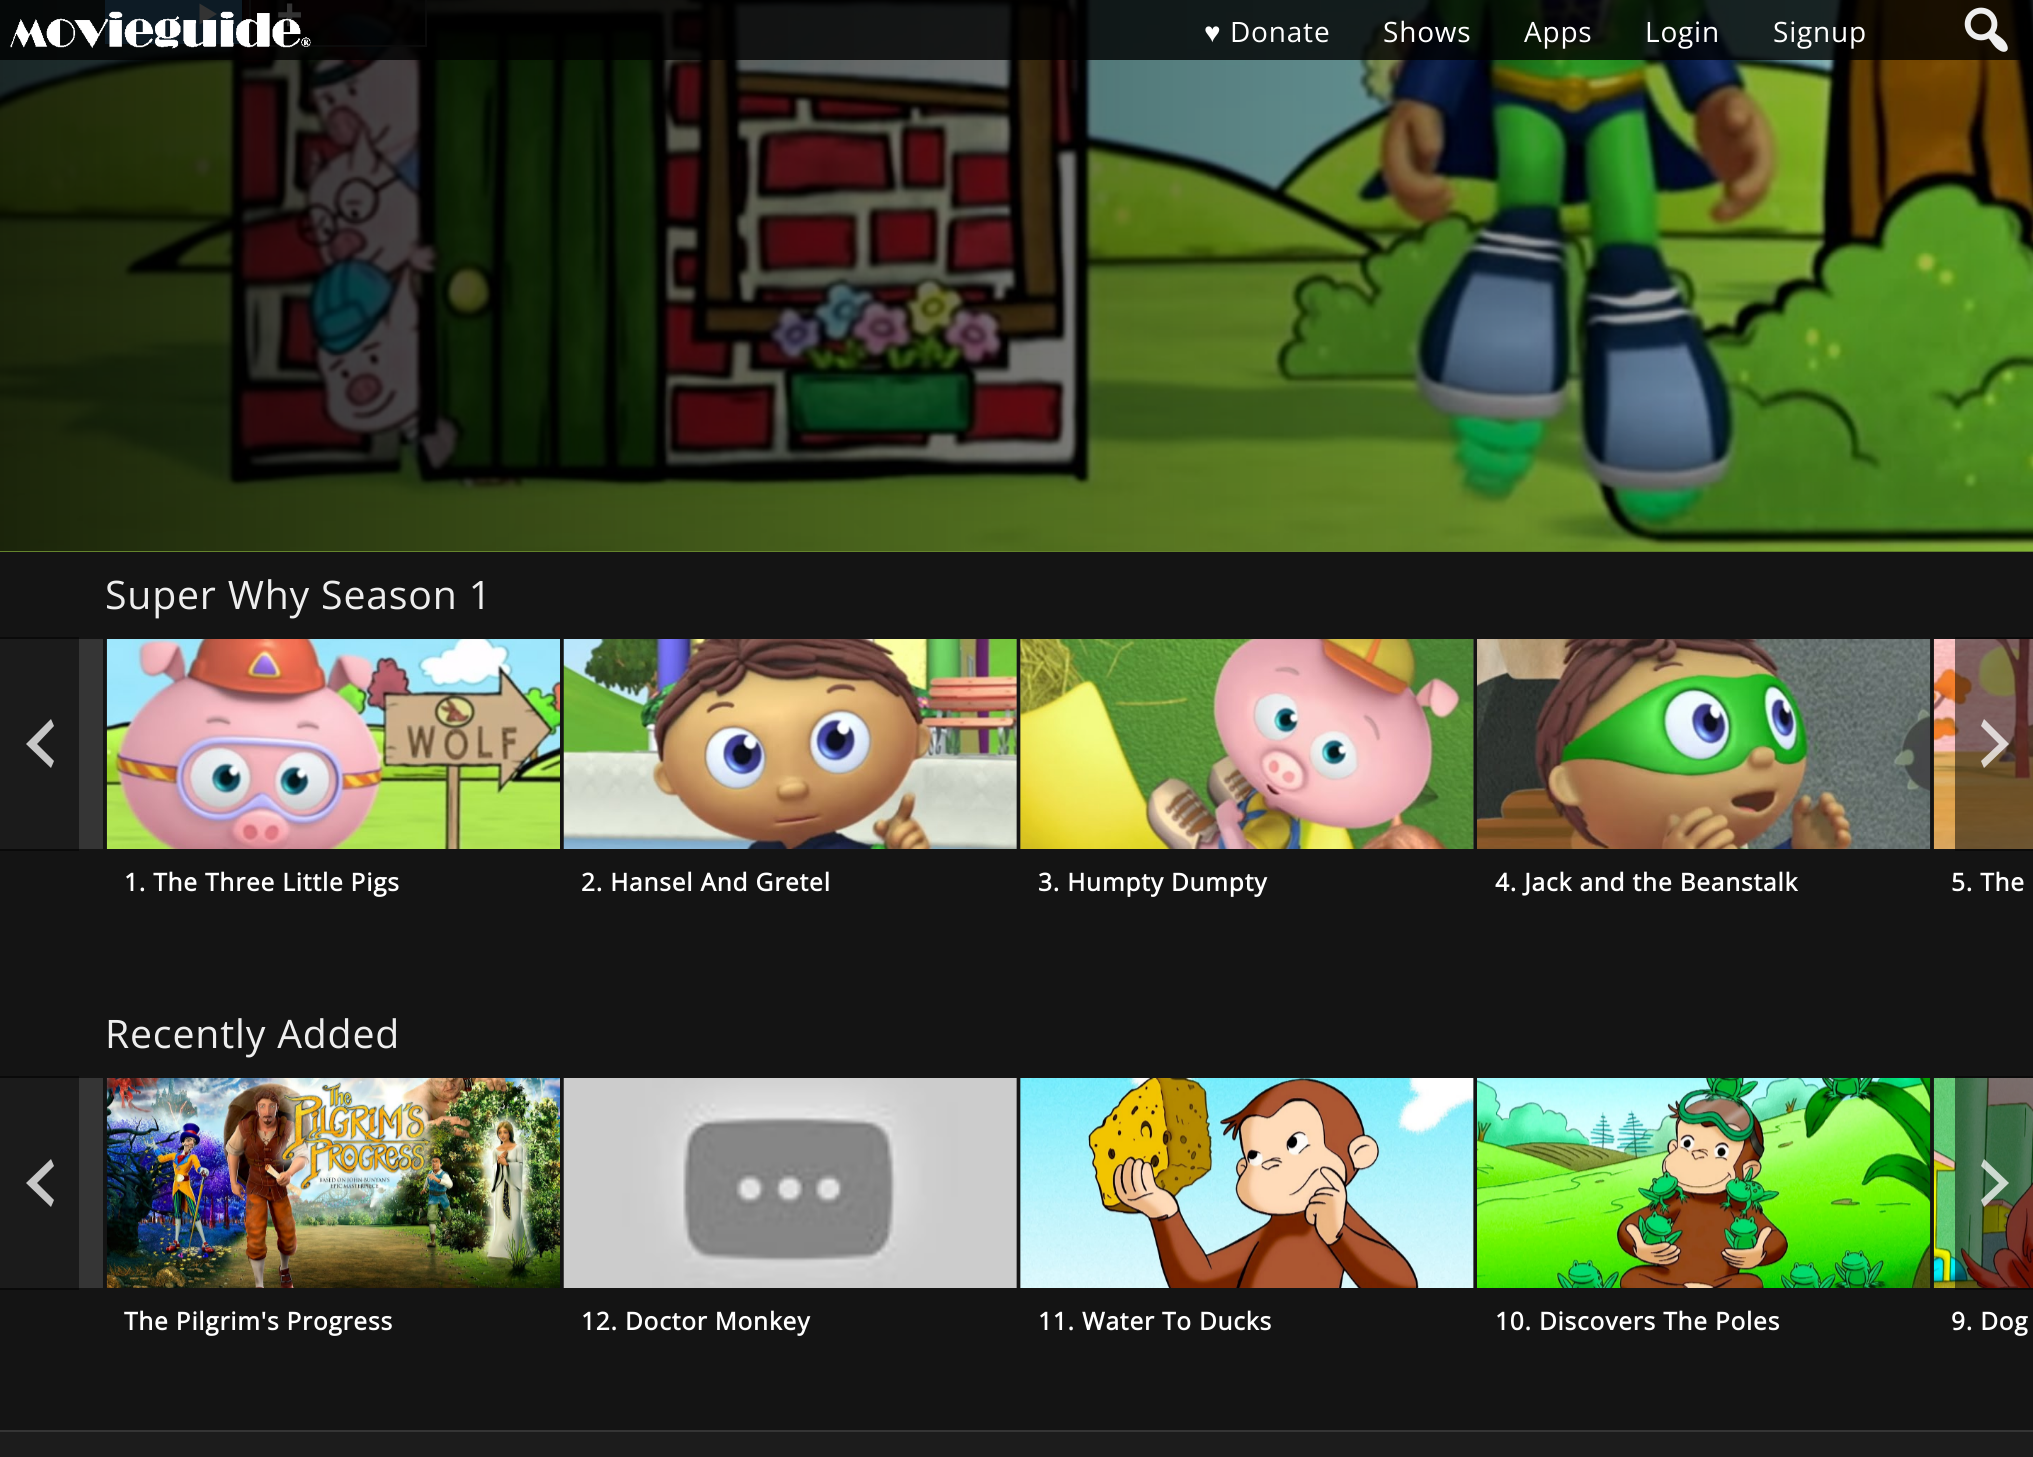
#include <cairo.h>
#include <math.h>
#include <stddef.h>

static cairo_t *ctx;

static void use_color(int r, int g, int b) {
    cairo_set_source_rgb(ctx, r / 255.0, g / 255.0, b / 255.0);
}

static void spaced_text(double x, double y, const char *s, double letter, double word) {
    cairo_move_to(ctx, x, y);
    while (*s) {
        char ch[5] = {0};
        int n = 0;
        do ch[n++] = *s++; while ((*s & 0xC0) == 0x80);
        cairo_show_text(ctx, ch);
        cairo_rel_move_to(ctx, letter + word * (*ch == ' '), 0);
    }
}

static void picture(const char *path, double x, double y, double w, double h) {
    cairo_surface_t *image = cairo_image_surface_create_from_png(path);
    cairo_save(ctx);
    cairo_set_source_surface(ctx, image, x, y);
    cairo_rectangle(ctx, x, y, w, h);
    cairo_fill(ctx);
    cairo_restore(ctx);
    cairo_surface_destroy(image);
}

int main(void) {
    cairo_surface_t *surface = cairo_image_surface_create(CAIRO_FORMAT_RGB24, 2033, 1457);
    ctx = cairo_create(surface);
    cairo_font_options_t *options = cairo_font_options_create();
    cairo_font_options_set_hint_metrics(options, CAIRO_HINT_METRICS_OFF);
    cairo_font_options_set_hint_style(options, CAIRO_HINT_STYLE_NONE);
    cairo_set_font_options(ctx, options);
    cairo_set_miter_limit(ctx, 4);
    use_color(20, 20, 20);
    cairo_paint(ctx);
    use_color(10, 10, 10);
    cairo_rectangle(ctx, 0, 1076, 79, 214);
    cairo_fill(ctx);
    cairo_rectangle(ctx, 0, 637, 79, 214);
    cairo_fill(ctx);
    picture("img4.png", 0, 0, 2033, 552);
    use_color(65, 137, 186);
    cairo_rectangle(ctx, 105, 0, 137, 44);
    cairo_fill(ctx);
    use_color(255, 255, 255);
    cairo_new_path(ctx);
    cairo_move_to(ctx, 199.5, 3.5);
    cairo_line_to(ctx, 217, 14);
    cairo_line_to(ctx, 199.5, 24.5);
    cairo_close_path(ctx);
    cairo_fill(ctx);
    cairo_set_source_rgba(ctx, 0, 0, 0, 0.4);
    cairo_rectangle(ctx, 250, -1, 176, 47);
    cairo_fill_preserve(ctx);
    use_color(53, 53, 53);
    cairo_stroke(ctx);
    picture("img3.png", 278, 3, 23, 24);
    cairo_set_source_rgba(ctx, 0, 0, 0, 0.8);
    cairo_rectangle(ctx, 0, 0, 2033, 60);
    cairo_fill(ctx);
    picture("img1.png", 10, 11, 301, 38);
    cairo_select_font_face(ctx, "Liberation Sans", CAIRO_FONT_SLANT_NORMAL, CAIRO_FONT_WEIGHT_NORMAL);
    cairo_set_font_size(ctx, 28);
    use_color(255, 255, 255);
    spaced_text(1204, 42, "♥", 0.8, 0);
    cairo_select_font_face(ctx, "Open Sans", CAIRO_FONT_SLANT_NORMAL, CAIRO_FONT_WEIGHT_NORMAL);
    spaced_text(1230, 42, "Donate", 0.8, 0);
    spaced_text(1383, 42, "Shows", 0.8, 0);
    spaced_text(1524, 42, "Apps", 0.8, 0);
    spaced_text(1645, 42, "Login", 0.8, 0);
    spaced_text(1773, 42, "Signup", 0.8, 0);
    picture("img2.png", 1964, 7, 44, 45);
    cairo_set_font_size(ctx, 39.25);
    use_color(238, 238, 238);
    spaced_text(105, 609, "Super Why Season 1", 0.8, 0);
    use_color(27, 27, 27);
    cairo_rectangle(ctx, 0, 639, 79, 210);
    cairo_fill(ctx);
    use_color(198, 198, 198);
    cairo_new_path(ctx);
    cairo_move_to(ctx, 54, 726);
    cairo_line_to(ctx, 37, 744);
    cairo_line_to(ctx, 54, 761);
    cairo_line_to(ctx, 51, 768);
    cairo_line_to(ctx, 26, 744);
    cairo_line_to(ctx, 51, 719);
    cairo_close_path(ctx);
    cairo_fill(ctx);
    picture("img9.png", 1933, 639, 100, 210);
    cairo_set_source_rgba(ctx, 0, 0, 0, 0.5);
    cairo_rectangle(ctx, 1955, 637, 78, 214);
    cairo_fill(ctx);
    cairo_set_source_rgba(ctx, 1, 1, 1, 0.75);
    cairo_new_path(ctx);
    cairo_move_to(ctx, 1981, 761);
    cairo_line_to(ctx, 1999, 744);
    cairo_line_to(ctx, 1981, 726);
    cairo_line_to(ctx, 1984, 719);
    cairo_line_to(ctx, 2009, 744);
    cairo_line_to(ctx, 1984, 768);
    cairo_close_path(ctx);
    cairo_fill(ctx);
    use_color(53, 53, 53);
    cairo_rectangle(ctx, 79, 639, 24, 210);
    cairo_fill(ctx);
    picture("img5.png", 106, 639, 454, 210);
    cairo_select_font_face(ctx, "Open Sans", CAIRO_FONT_SLANT_NORMAL, CAIRO_FONT_WEIGHT_BOLD);
    cairo_set_font_size(ctx, 24.5);
    use_color(255, 255, 255);
    spaced_text(124, 891, "1. The Three Little Pigs", 0.8, 0);
    use_color(53, 53, 53);
    cairo_rectangle(ctx, 1016, 639, 1, 210);
    cairo_fill(ctx);
    picture("img6.png", 563, 639, 454, 210);
    use_color(255, 255, 255);
    spaced_text(581, 891, "2. Hansel And Gretel", 0.8, 0);
    use_color(53, 53, 53);
    cairo_rectangle(ctx, 1020, 639, 454, 210);
    cairo_fill(ctx);
    picture("img7.png", 1020, 639, 454, 210);
    use_color(255, 255, 255);
    spaced_text(1038, 891, "3. Humpty Dumpty", 0.8, 0);
    picture("img8.png", 1477, 639, 454, 210);
    spaced_text(1495, 891, "4. Jack and the Beanstalk", 0.8, 0);
    spaced_text(1951, 891, "5. The", 0.8, 0);
    cairo_select_font_face(ctx, "Open Sans", CAIRO_FONT_SLANT_NORMAL, CAIRO_FONT_WEIGHT_NORMAL);
    cairo_set_font_size(ctx, 39.25);
    use_color(238, 238, 238);
    spaced_text(105, 1048, "Recently Added", 0.8, 0);
    use_color(27, 27, 27);
    cairo_rectangle(ctx, 0, 1078, 79, 210);
    cairo_fill(ctx);
    use_color(198, 198, 198);
    cairo_new_path(ctx);
    cairo_move_to(ctx, 54, 1166);
    cairo_line_to(ctx, 37, 1183);
    cairo_line_to(ctx, 54, 1200);
    cairo_line_to(ctx, 51, 1207);
    cairo_line_to(ctx, 26, 1183);
    cairo_line_to(ctx, 51, 1159);
    cairo_close_path(ctx);
    cairo_fill(ctx);
    picture("img14.png", 1933, 1078, 100, 210);
    cairo_set_source_rgba(ctx, 0, 0, 0, 0.5);
    cairo_rectangle(ctx, 1955, 1076, 78, 214);
    cairo_fill(ctx);
    cairo_set_source_rgba(ctx, 1, 1, 1, 0.75);
    cairo_new_path(ctx);
    cairo_move_to(ctx, 1981, 1200);
    cairo_line_to(ctx, 1999, 1183);
    cairo_line_to(ctx, 1981, 1166);
    cairo_line_to(ctx, 1984, 1159);
    cairo_line_to(ctx, 2009, 1183);
    cairo_line_to(ctx, 1984, 1207);
    cairo_close_path(ctx);
    cairo_fill(ctx);
    use_color(53, 53, 53);
    cairo_rectangle(ctx, 79, 1078, 24, 210);
    cairo_fill(ctx);
    picture("img10.png", 106, 1078, 454, 210);
    cairo_select_font_face(ctx, "Open Sans", CAIRO_FONT_SLANT_NORMAL, CAIRO_FONT_WEIGHT_BOLD);
    cairo_set_font_size(ctx, 24.5);
    use_color(255, 255, 255);
    spaced_text(124, 1330, "The Pilgrim's Progress", 0.8, 0);
    use_color(53, 53, 53);
    cairo_rectangle(ctx, 1016, 1078, 1, 210);
    cairo_fill(ctx);
    picture("img11.png", 563, 1078, 454, 210);
    use_color(255, 255, 255);
    spaced_text(581, 1330, "12. Doctor Monkey", 0.8, 0);
    use_color(53, 53, 53);
    cairo_rectangle(ctx, 1020, 1078, 454, 210);
    cairo_fill(ctx);
    picture("img12.png", 1020, 1078, 454, 210);
    use_color(255, 255, 255);
    spaced_text(1038, 1330, "11. Water To Ducks", 0.8, 0);
    picture("img13.png", 1477, 1078, 454, 210);
    spaced_text(1495, 1330, "10. Discovers The Poles", 0.8, 0);
    spaced_text(1951, 1330, "9. Dog", 0.8, 0);
    use_color(28, 28, 28);
    cairo_rectangle(ctx, 0, 1432, 2033, 25);
    cairo_fill(ctx);
    use_color(53, 53, 53);
    cairo_rectangle(ctx, 0, 1430, 2033, 2);
    cairo_fill(ctx);
    cairo_surface_write_to_png(surface, "result.png");
    cairo_font_options_destroy(options);
    cairo_destroy(ctx);
    cairo_surface_destroy(surface);
    return 0;
}
